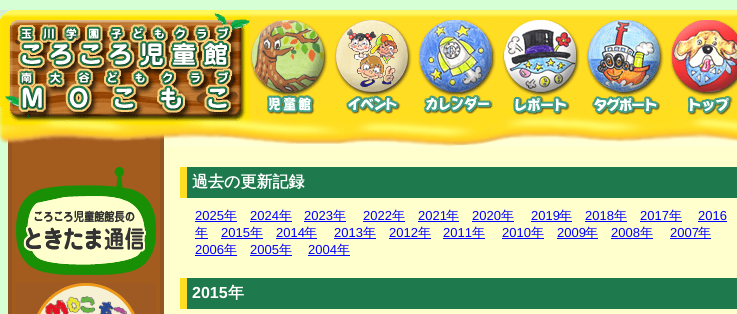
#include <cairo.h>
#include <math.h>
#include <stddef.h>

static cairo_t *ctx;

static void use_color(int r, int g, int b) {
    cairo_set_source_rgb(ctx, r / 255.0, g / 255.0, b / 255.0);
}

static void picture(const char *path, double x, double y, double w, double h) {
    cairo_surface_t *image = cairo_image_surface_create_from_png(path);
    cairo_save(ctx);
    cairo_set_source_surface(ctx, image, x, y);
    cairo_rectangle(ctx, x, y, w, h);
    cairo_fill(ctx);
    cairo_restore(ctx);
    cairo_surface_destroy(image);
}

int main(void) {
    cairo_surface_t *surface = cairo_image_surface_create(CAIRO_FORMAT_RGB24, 737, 314);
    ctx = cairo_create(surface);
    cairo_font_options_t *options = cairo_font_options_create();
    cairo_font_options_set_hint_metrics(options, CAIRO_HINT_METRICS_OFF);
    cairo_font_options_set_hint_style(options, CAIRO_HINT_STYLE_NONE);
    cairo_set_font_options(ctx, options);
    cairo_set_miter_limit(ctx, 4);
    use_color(214, 255, 214);
    cairo_paint(ctx);
    picture("img1.png", 8, 147, 729, 167);
    picture("img2.png", 0, 10, 737, 137);
    picture("img3.png", 0, 10, 250, 115);
    picture("img4.png", 250, 20, 78, 95);
    picture("img5.png", 334, 20, 78, 95);
    picture("img6.png", 418, 20, 78, 94);
    picture("img7.png", 502, 20, 78, 95);
    picture("img8.png", 586, 20, 78, 95);
    picture("img9.png", 670, 20, 67, 95);
    picture("img10.png", 16, 167, 140, 108);
    picture("img11.png", 16, 283, 140, 31);
    use_color(30, 122, 76);
    cairo_rectangle(ctx, 187, 167, 550, 31);
    cairo_fill(ctx);
    use_color(255, 221, 35);
    cairo_rectangle(ctx, 180, 167, 7, 31);
    cairo_fill(ctx);
    cairo_select_font_face(ctx, "WenQuanYi Zen Hei", CAIRO_FONT_SLANT_NORMAL, CAIRO_FONT_WEIGHT_BOLD);
    cairo_set_font_size(ctx, 16);
    use_color(255, 255, 255);
    cairo_move_to(ctx, 192, 187);
    cairo_show_text(ctx, "過去の更新記録");
    cairo_select_font_face(ctx, "Liberation Sans", CAIRO_FONT_SLANT_NORMAL, CAIRO_FONT_WEIGHT_NORMAL);
    cairo_set_font_size(ctx, 13);
    use_color(0, 0, 255);
    cairo_move_to(ctx, 195, 220);
    cairo_show_text(ctx, "2025");
    cairo_rectangle(ctx, 195, 221, 42, 1);
    cairo_fill(ctx);
    cairo_select_font_face(ctx, "WenQuanYi Zen Hei Medium", CAIRO_FONT_SLANT_NORMAL, CAIRO_FONT_WEIGHT_NORMAL);
    cairo_move_to(ctx, 224, 220);
    cairo_show_text(ctx, "年");
    cairo_select_font_face(ctx, "Liberation Sans", CAIRO_FONT_SLANT_NORMAL, CAIRO_FONT_WEIGHT_NORMAL);
    cairo_move_to(ctx, 250, 220);
    cairo_show_text(ctx, "2024");
    cairo_rectangle(ctx, 250, 221, 42, 1);
    cairo_fill(ctx);
    cairo_select_font_face(ctx, "WenQuanYi Zen Hei Medium", CAIRO_FONT_SLANT_NORMAL, CAIRO_FONT_WEIGHT_NORMAL);
    cairo_move_to(ctx, 279, 220);
    cairo_show_text(ctx, "年");
    cairo_select_font_face(ctx, "Liberation Sans", CAIRO_FONT_SLANT_NORMAL, CAIRO_FONT_WEIGHT_NORMAL);
    cairo_move_to(ctx, 304, 220);
    cairo_show_text(ctx, "2023");
    cairo_rectangle(ctx, 304, 221, 42, 1);
    cairo_fill(ctx);
    cairo_select_font_face(ctx, "WenQuanYi Zen Hei Medium", CAIRO_FONT_SLANT_NORMAL, CAIRO_FONT_WEIGHT_NORMAL);
    cairo_move_to(ctx, 333, 220);
    cairo_show_text(ctx, "年");
    cairo_select_font_face(ctx, "Liberation Sans", CAIRO_FONT_SLANT_NORMAL, CAIRO_FONT_WEIGHT_NORMAL);
    cairo_move_to(ctx, 363, 220);
    cairo_show_text(ctx, "2022");
    cairo_rectangle(ctx, 363, 221, 42, 1);
    cairo_fill(ctx);
    cairo_select_font_face(ctx, "WenQuanYi Zen Hei Medium", CAIRO_FONT_SLANT_NORMAL, CAIRO_FONT_WEIGHT_NORMAL);
    cairo_move_to(ctx, 392, 220);
    cairo_show_text(ctx, "年");
    cairo_select_font_face(ctx, "Liberation Sans", CAIRO_FONT_SLANT_NORMAL, CAIRO_FONT_WEIGHT_NORMAL);
    cairo_move_to(ctx, 418, 220);
    cairo_show_text(ctx, "2021");
    cairo_rectangle(ctx, 418, 221, 41, 1);
    cairo_fill(ctx);
    cairo_select_font_face(ctx, "WenQuanYi Zen Hei Medium", CAIRO_FONT_SLANT_NORMAL, CAIRO_FONT_WEIGHT_NORMAL);
    cairo_move_to(ctx, 446, 220);
    cairo_show_text(ctx, "年");
    cairo_select_font_face(ctx, "Liberation Sans", CAIRO_FONT_SLANT_NORMAL, CAIRO_FONT_WEIGHT_NORMAL);
    cairo_move_to(ctx, 472, 220);
    cairo_show_text(ctx, "2020");
    cairo_rectangle(ctx, 472, 221, 42, 1);
    cairo_fill(ctx);
    cairo_select_font_face(ctx, "WenQuanYi Zen Hei Medium", CAIRO_FONT_SLANT_NORMAL, CAIRO_FONT_WEIGHT_NORMAL);
    cairo_move_to(ctx, 501, 220);
    cairo_show_text(ctx, "年");
    cairo_select_font_face(ctx, "Liberation Sans", CAIRO_FONT_SLANT_NORMAL, CAIRO_FONT_WEIGHT_NORMAL);
    cairo_move_to(ctx, 531, 220);
    cairo_show_text(ctx, "2019");
    cairo_rectangle(ctx, 531, 221, 41, 1);
    cairo_fill(ctx);
    cairo_select_font_face(ctx, "WenQuanYi Zen Hei Medium", CAIRO_FONT_SLANT_NORMAL, CAIRO_FONT_WEIGHT_NORMAL);
    cairo_move_to(ctx, 559, 220);
    cairo_show_text(ctx, "年");
    cairo_select_font_face(ctx, "Liberation Sans", CAIRO_FONT_SLANT_NORMAL, CAIRO_FONT_WEIGHT_NORMAL);
    cairo_move_to(ctx, 585, 220);
    cairo_show_text(ctx, "2018");
    cairo_rectangle(ctx, 585, 221, 42, 1);
    cairo_fill(ctx);
    cairo_select_font_face(ctx, "WenQuanYi Zen Hei Medium", CAIRO_FONT_SLANT_NORMAL, CAIRO_FONT_WEIGHT_NORMAL);
    cairo_move_to(ctx, 614, 220);
    cairo_show_text(ctx, "年");
    cairo_select_font_face(ctx, "Liberation Sans", CAIRO_FONT_SLANT_NORMAL, CAIRO_FONT_WEIGHT_NORMAL);
    cairo_move_to(ctx, 640, 220);
    cairo_show_text(ctx, "2017");
    cairo_rectangle(ctx, 640, 221, 42, 1);
    cairo_fill(ctx);
    cairo_select_font_face(ctx, "WenQuanYi Zen Hei Medium", CAIRO_FONT_SLANT_NORMAL, CAIRO_FONT_WEIGHT_NORMAL);
    cairo_move_to(ctx, 669, 220);
    cairo_show_text(ctx, "年");
    cairo_select_font_face(ctx, "Liberation Sans", CAIRO_FONT_SLANT_NORMAL, CAIRO_FONT_WEIGHT_NORMAL);
    cairo_move_to(ctx, 698, 220);
    cairo_show_text(ctx, "2016");
    cairo_rectangle(ctx, 698, 221, 29, 1);
    cairo_fill(ctx);
    cairo_rectangle(ctx, 195, 238, 13, 1);
    cairo_fill(ctx);
    cairo_select_font_face(ctx, "WenQuanYi Zen Hei Medium", CAIRO_FONT_SLANT_NORMAL, CAIRO_FONT_WEIGHT_NORMAL);
    cairo_move_to(ctx, 195, 237);
    cairo_show_text(ctx, "年");
    cairo_select_font_face(ctx, "Liberation Sans", CAIRO_FONT_SLANT_NORMAL, CAIRO_FONT_WEIGHT_NORMAL);
    cairo_move_to(ctx, 221, 237);
    cairo_show_text(ctx, "2015");
    cairo_rectangle(ctx, 221, 238, 42, 1);
    cairo_fill(ctx);
    cairo_select_font_face(ctx, "WenQuanYi Zen Hei Medium", CAIRO_FONT_SLANT_NORMAL, CAIRO_FONT_WEIGHT_NORMAL);
    cairo_move_to(ctx, 250, 237);
    cairo_show_text(ctx, "年");
    cairo_select_font_face(ctx, "Liberation Sans", CAIRO_FONT_SLANT_NORMAL, CAIRO_FONT_WEIGHT_NORMAL);
    cairo_move_to(ctx, 276, 237);
    cairo_show_text(ctx, "2014");
    cairo_rectangle(ctx, 276, 238, 41, 1);
    cairo_fill(ctx);
    cairo_select_font_face(ctx, "WenQuanYi Zen Hei Medium", CAIRO_FONT_SLANT_NORMAL, CAIRO_FONT_WEIGHT_NORMAL);
    cairo_move_to(ctx, 304, 237);
    cairo_show_text(ctx, "年");
    cairo_select_font_face(ctx, "Liberation Sans", CAIRO_FONT_SLANT_NORMAL, CAIRO_FONT_WEIGHT_NORMAL);
    cairo_move_to(ctx, 334, 237);
    cairo_show_text(ctx, "2013");
    cairo_rectangle(ctx, 334, 238, 42, 1);
    cairo_fill(ctx);
    cairo_select_font_face(ctx, "WenQuanYi Zen Hei Medium", CAIRO_FONT_SLANT_NORMAL, CAIRO_FONT_WEIGHT_NORMAL);
    cairo_move_to(ctx, 363, 237);
    cairo_show_text(ctx, "年");
    cairo_select_font_face(ctx, "Liberation Sans", CAIRO_FONT_SLANT_NORMAL, CAIRO_FONT_WEIGHT_NORMAL);
    cairo_move_to(ctx, 389, 237);
    cairo_show_text(ctx, "2012");
    cairo_rectangle(ctx, 389, 238, 42, 1);
    cairo_fill(ctx);
    cairo_select_font_face(ctx, "WenQuanYi Zen Hei Medium", CAIRO_FONT_SLANT_NORMAL, CAIRO_FONT_WEIGHT_NORMAL);
    cairo_move_to(ctx, 418, 237);
    cairo_show_text(ctx, "年");
    cairo_select_font_face(ctx, "Liberation Sans", CAIRO_FONT_SLANT_NORMAL, CAIRO_FONT_WEIGHT_NORMAL);
    cairo_move_to(ctx, 443, 237);
    cairo_show_text(ctx, "2011");
    cairo_rectangle(ctx, 443, 238, 42, 1);
    cairo_fill(ctx);
    cairo_select_font_face(ctx, "WenQuanYi Zen Hei Medium", CAIRO_FONT_SLANT_NORMAL, CAIRO_FONT_WEIGHT_NORMAL);
    cairo_move_to(ctx, 472, 237);
    cairo_show_text(ctx, "年");
    cairo_select_font_face(ctx, "Liberation Sans", CAIRO_FONT_SLANT_NORMAL, CAIRO_FONT_WEIGHT_NORMAL);
    cairo_move_to(ctx, 502, 237);
    cairo_show_text(ctx, "2010");
    cairo_rectangle(ctx, 502, 238, 42, 1);
    cairo_fill(ctx);
    cairo_select_font_face(ctx, "WenQuanYi Zen Hei Medium", CAIRO_FONT_SLANT_NORMAL, CAIRO_FONT_WEIGHT_NORMAL);
    cairo_move_to(ctx, 531, 237);
    cairo_show_text(ctx, "年");
    cairo_select_font_face(ctx, "Liberation Sans", CAIRO_FONT_SLANT_NORMAL, CAIRO_FONT_WEIGHT_NORMAL);
    cairo_move_to(ctx, 557, 237);
    cairo_show_text(ctx, "2009");
    cairo_rectangle(ctx, 557, 238, 41, 1);
    cairo_fill(ctx);
    cairo_select_font_face(ctx, "WenQuanYi Zen Hei Medium", CAIRO_FONT_SLANT_NORMAL, CAIRO_FONT_WEIGHT_NORMAL);
    cairo_move_to(ctx, 585, 237);
    cairo_show_text(ctx, "年");
    cairo_select_font_face(ctx, "Liberation Sans", CAIRO_FONT_SLANT_NORMAL, CAIRO_FONT_WEIGHT_NORMAL);
    cairo_move_to(ctx, 611, 237);
    cairo_show_text(ctx, "2008");
    cairo_rectangle(ctx, 611, 238, 42, 1);
    cairo_fill(ctx);
    cairo_select_font_face(ctx, "WenQuanYi Zen Hei Medium", CAIRO_FONT_SLANT_NORMAL, CAIRO_FONT_WEIGHT_NORMAL);
    cairo_move_to(ctx, 640, 237);
    cairo_show_text(ctx, "年");
    cairo_select_font_face(ctx, "Liberation Sans", CAIRO_FONT_SLANT_NORMAL, CAIRO_FONT_WEIGHT_NORMAL);
    cairo_move_to(ctx, 670, 237);
    cairo_show_text(ctx, "2007");
    cairo_rectangle(ctx, 670, 238, 41, 1);
    cairo_fill(ctx);
    cairo_select_font_face(ctx, "WenQuanYi Zen Hei Medium", CAIRO_FONT_SLANT_NORMAL, CAIRO_FONT_WEIGHT_NORMAL);
    cairo_move_to(ctx, 698, 237);
    cairo_show_text(ctx, "年");
    cairo_select_font_face(ctx, "Liberation Sans", CAIRO_FONT_SLANT_NORMAL, CAIRO_FONT_WEIGHT_NORMAL);
    cairo_move_to(ctx, 195, 254);
    cairo_show_text(ctx, "2006");
    cairo_rectangle(ctx, 195, 255, 42, 1);
    cairo_fill(ctx);
    cairo_select_font_face(ctx, "WenQuanYi Zen Hei Medium", CAIRO_FONT_SLANT_NORMAL, CAIRO_FONT_WEIGHT_NORMAL);
    cairo_move_to(ctx, 224, 254);
    cairo_show_text(ctx, "年");
    cairo_select_font_face(ctx, "Liberation Sans", CAIRO_FONT_SLANT_NORMAL, CAIRO_FONT_WEIGHT_NORMAL);
    cairo_move_to(ctx, 250, 254);
    cairo_show_text(ctx, "2005");
    cairo_rectangle(ctx, 250, 255, 42, 1);
    cairo_fill(ctx);
    cairo_select_font_face(ctx, "WenQuanYi Zen Hei Medium", CAIRO_FONT_SLANT_NORMAL, CAIRO_FONT_WEIGHT_NORMAL);
    cairo_move_to(ctx, 279, 254);
    cairo_show_text(ctx, "年");
    cairo_select_font_face(ctx, "Liberation Sans", CAIRO_FONT_SLANT_NORMAL, CAIRO_FONT_WEIGHT_NORMAL);
    cairo_move_to(ctx, 308, 254);
    cairo_show_text(ctx, "2004");
    cairo_rectangle(ctx, 308, 255, 42, 1);
    cairo_fill(ctx);
    cairo_select_font_face(ctx, "WenQuanYi Zen Hei Medium", CAIRO_FONT_SLANT_NORMAL, CAIRO_FONT_WEIGHT_NORMAL);
    cairo_move_to(ctx, 337, 254);
    cairo_show_text(ctx, "年");
    use_color(30, 122, 76);
    cairo_rectangle(ctx, 187, 278, 550, 31);
    cairo_fill(ctx);
    use_color(255, 221, 35);
    cairo_rectangle(ctx, 180, 278, 7, 31);
    cairo_fill(ctx);
    cairo_select_font_face(ctx, "Liberation Sans", CAIRO_FONT_SLANT_NORMAL, CAIRO_FONT_WEIGHT_BOLD);
    cairo_set_font_size(ctx, 16);
    use_color(255, 255, 255);
    cairo_move_to(ctx, 192, 298);
    cairo_show_text(ctx, "2015");
    cairo_select_font_face(ctx, "WenQuanYi Zen Hei", CAIRO_FONT_SLANT_NORMAL, CAIRO_FONT_WEIGHT_BOLD);
    cairo_move_to(ctx, 228, 298);
    cairo_show_text(ctx, "年");
    cairo_surface_write_to_png(surface, "result.png");
    cairo_font_options_destroy(options);
    cairo_destroy(ctx);
    cairo_surface_destroy(surface);
    return 0;
}
